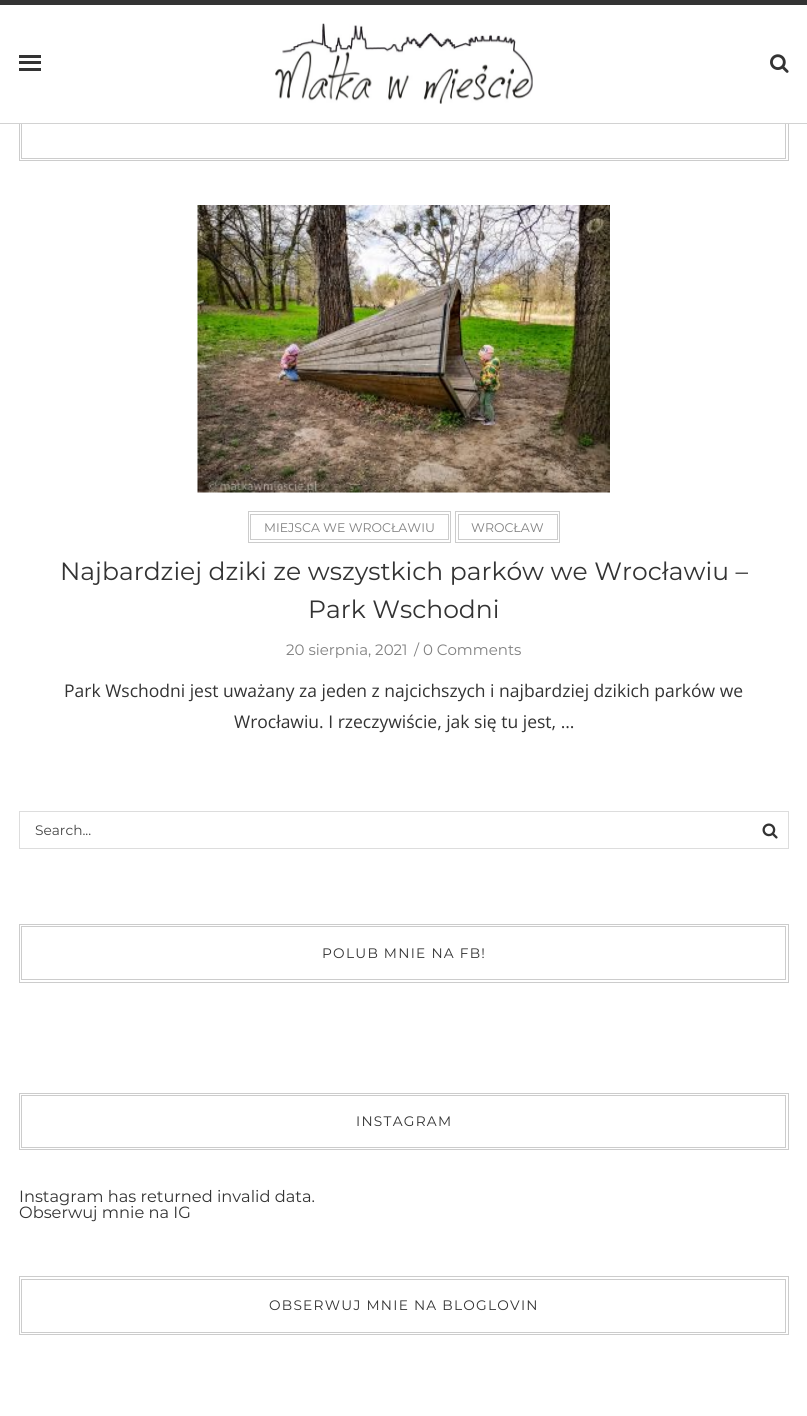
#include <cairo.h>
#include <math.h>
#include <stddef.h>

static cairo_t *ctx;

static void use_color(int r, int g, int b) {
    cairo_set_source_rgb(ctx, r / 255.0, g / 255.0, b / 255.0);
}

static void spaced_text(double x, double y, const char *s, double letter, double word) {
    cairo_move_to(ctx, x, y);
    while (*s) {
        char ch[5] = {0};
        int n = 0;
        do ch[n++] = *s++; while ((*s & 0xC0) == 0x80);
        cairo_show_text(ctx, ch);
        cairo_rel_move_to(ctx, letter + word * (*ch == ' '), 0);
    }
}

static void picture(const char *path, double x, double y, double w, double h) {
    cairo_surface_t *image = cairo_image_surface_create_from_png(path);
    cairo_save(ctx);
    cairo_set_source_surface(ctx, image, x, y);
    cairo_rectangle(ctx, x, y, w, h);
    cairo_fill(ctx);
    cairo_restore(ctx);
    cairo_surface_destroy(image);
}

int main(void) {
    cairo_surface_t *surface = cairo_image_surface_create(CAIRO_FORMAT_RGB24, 807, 1416);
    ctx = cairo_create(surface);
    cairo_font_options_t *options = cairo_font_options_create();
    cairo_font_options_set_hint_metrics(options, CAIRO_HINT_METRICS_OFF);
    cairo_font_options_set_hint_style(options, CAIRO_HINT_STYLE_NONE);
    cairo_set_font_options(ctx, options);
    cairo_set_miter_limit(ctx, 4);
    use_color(255, 255, 255);
    cairo_paint(ctx);
    cairo_rectangle(ctx, 19.5, 86.5, 769, 74);
    use_color(204, 204, 204);
    cairo_set_line_width(ctx, 1);
    cairo_stroke(ctx);
    cairo_rectangle(ctx, 21.5, 89.5, 764, 69);
    cairo_stroke(ctx);
    use_color(255, 255, 255);
    cairo_rectangle(ctx, 19, 86, 770, 37);
    cairo_fill(ctx);
    use_color(51, 51, 51);
    cairo_rectangle(ctx, 0, 0, 807, 5);
    cairo_fill(ctx);
    use_color(210, 210, 210);
    cairo_rectangle(ctx, 0, 123, 807, 1);
    cairo_fill(ctx);
    use_color(51, 51, 51);
    cairo_rectangle(ctx, 19, 55, 22, 3);
    cairo_fill(ctx);
    cairo_rectangle(ctx, 19, 61, 22, 3);
    cairo_fill(ctx);
    cairo_rectangle(ctx, 19, 68, 22, 3);
    cairo_fill(ctx);
    picture("img1.png", 275, 23, 258, 81);
    picture("img2.png", 770, 54, 19, 19);
    picture("img3.png", 197, 205, 413, 288);
    cairo_rectangle(ctx, 248.5, 511.5, 202, 31);
    use_color(204, 204, 204);
    cairo_stroke(ctx);
    cairo_rectangle(ctx, 250.5, 514.5, 198, 25);
    cairo_stroke(ctx);
    cairo_select_font_face(ctx, "Montserrat", CAIRO_FONT_SLANT_NORMAL, CAIRO_FONT_WEIGHT_NORMAL);
    cairo_set_font_size(ctx, 12.5);
    use_color(128, 128, 128);
    cairo_move_to(ctx, 264, 532);
    cairo_show_text(ctx, "MIEJSCA WE WROCŁAWIU");
    cairo_rectangle(ctx, 455.5, 511.5, 104, 31);
    use_color(204, 204, 204);
    cairo_stroke(ctx);
    cairo_rectangle(ctx, 458.5, 514.5, 99, 25);
    cairo_stroke(ctx);
    use_color(128, 128, 128);
    cairo_move_to(ctx, 471, 532);
    cairo_show_text(ctx, "WROCŁAW");
    cairo_set_font_size(ctx, 25);
    use_color(51, 51, 51);
    cairo_move_to(ctx, 60, 580);
    cairo_show_text(ctx, "Najbardziej dziki ze wszystkich parków we Wrocławiu –");
    cairo_move_to(ctx, 308, 618);
    cairo_show_text(ctx, "Park Wschodni");
    cairo_set_font_size(ctx, 15);
    use_color(128, 128, 128);
    cairo_move_to(ctx, 286, 655);
    cairo_show_text(ctx, "20 sierpnia, 2021");
    cairo_move_to(ctx, 414, 655);
    cairo_show_text(ctx, "/ 0 Comments");
    cairo_select_font_face(ctx, "Open Sans", CAIRO_FONT_SLANT_NORMAL, CAIRO_FONT_WEIGHT_NORMAL);
    cairo_set_font_size(ctx, 17.5);
    use_color(51, 51, 51);
    cairo_move_to(ctx, 64, 697);
    cairo_show_text(ctx, "Park Wschodni jest uważany za jeden z najcichszych i najbardziej dzikich parków we");
    cairo_move_to(ctx, 234, 728);
    cairo_show_text(ctx, "Wrocławiu. I rzeczywiście, jak się tu jest, …");
    cairo_rectangle(ctx, 19.5, 811.5, 769, 37);
    use_color(221, 221, 221);
    cairo_stroke(ctx);
    cairo_select_font_face(ctx, "Montserrat", CAIRO_FONT_SLANT_NORMAL, CAIRO_FONT_WEIGHT_NORMAL);
    cairo_set_font_size(ctx, 13.75);
    use_color(68, 68, 68);
    cairo_move_to(ctx, 35, 835);
    cairo_show_text(ctx, "Search...");
    picture("img4.png", 762, 823, 16, 16);
    cairo_rectangle(ctx, 19.5, 924.5, 769, 58);
    use_color(204, 204, 204);
    cairo_stroke(ctx);
    cairo_rectangle(ctx, 21.5, 926.5, 764, 53);
    cairo_stroke(ctx);
    use_color(51, 51, 51);
    spaced_text(322, 958, "POLUB MNIE NA FB!", 1.25, 0);
    cairo_rectangle(ctx, 19.5, 1093.5, 769, 56);
    use_color(204, 204, 204);
    cairo_stroke(ctx);
    cairo_rectangle(ctx, 21.5, 1095.5, 764, 52);
    cairo_stroke(ctx);
    use_color(51, 51, 51);
    spaced_text(356, 1126, "INSTAGRAM", 1.25, 0);
    cairo_set_font_size(ctx, 16.25);
    cairo_move_to(ctx, 19, 1202);
    cairo_show_text(ctx, "Instagram has returned invalid data.");
    cairo_move_to(ctx, 19, 1218);
    cairo_show_text(ctx, "Obserwuj mnie na IG");
    cairo_rectangle(ctx, 19.5, 1276.5, 769, 58);
    use_color(204, 204, 204);
    cairo_stroke(ctx);
    cairo_rectangle(ctx, 21.5, 1279.5, 764, 53);
    cairo_stroke(ctx);
    cairo_set_font_size(ctx, 13.75);
    use_color(51, 51, 51);
    spaced_text(269, 1310, "OBSERWUJ MNIE NA BLOGLOVIN", 1.25, 0);
    cairo_surface_write_to_png(surface, "result.png");
    cairo_font_options_destroy(options);
    cairo_destroy(ctx);
    cairo_surface_destroy(surface);
    return 0;
}
